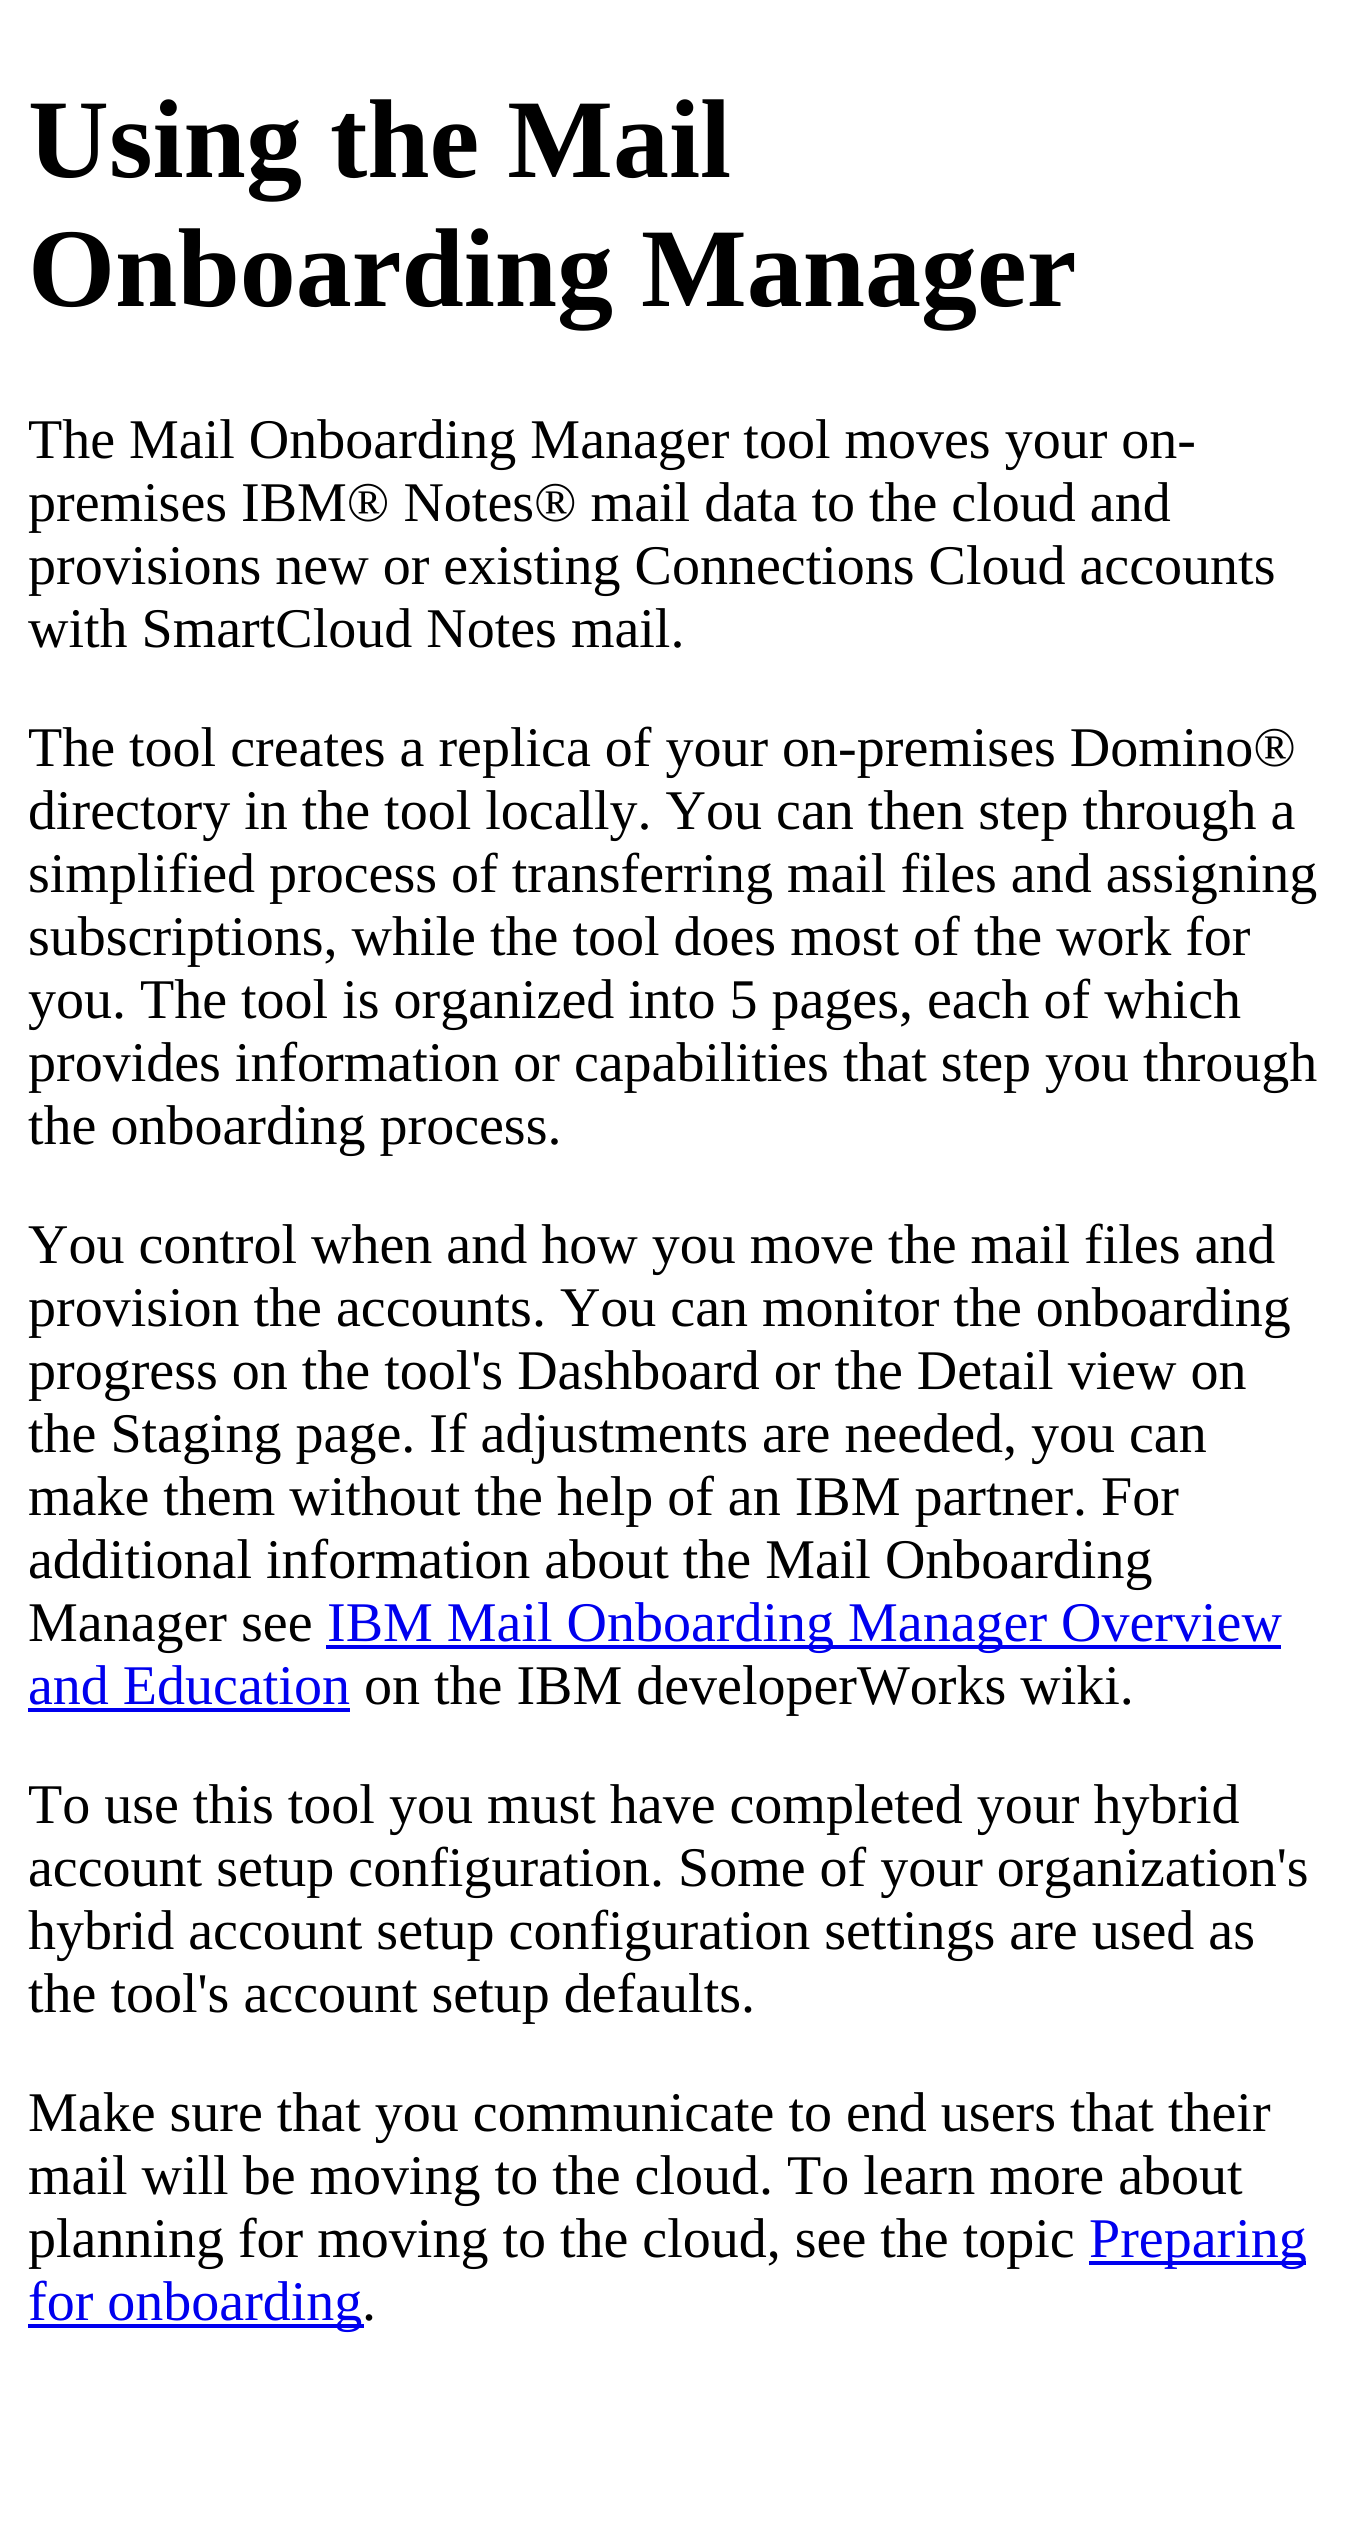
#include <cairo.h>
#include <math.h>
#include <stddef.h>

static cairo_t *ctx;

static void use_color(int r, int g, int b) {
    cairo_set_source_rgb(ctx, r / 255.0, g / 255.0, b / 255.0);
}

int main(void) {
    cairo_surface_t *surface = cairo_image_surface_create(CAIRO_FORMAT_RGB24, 1347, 2528);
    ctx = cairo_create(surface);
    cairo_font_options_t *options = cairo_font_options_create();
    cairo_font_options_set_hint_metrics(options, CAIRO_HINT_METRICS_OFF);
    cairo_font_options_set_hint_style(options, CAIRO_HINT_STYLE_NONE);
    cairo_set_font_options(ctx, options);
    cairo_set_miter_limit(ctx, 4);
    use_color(255, 255, 255);
    cairo_paint(ctx);
    cairo_select_font_face(ctx, "Liberation Serif", CAIRO_FONT_SLANT_NORMAL, CAIRO_FONT_WEIGHT_BOLD);
    cairo_set_font_size(ctx, 112);
    use_color(0, 0, 0);
    cairo_move_to(ctx, 28, 177);
    cairo_show_text(ctx, "Using the Mail");
    cairo_move_to(ctx, 28, 306);
    cairo_show_text(ctx, "Onboarding Manager");
    cairo_select_font_face(ctx, "Liberation Serif", CAIRO_FONT_SLANT_NORMAL, CAIRO_FONT_WEIGHT_NORMAL);
    cairo_set_font_size(ctx, 56);
    cairo_move_to(ctx, 28, 458);
    cairo_show_text(ctx, "The Mail Onboarding Manager tool moves your on-");
    cairo_move_to(ctx, 28, 521);
    cairo_show_text(ctx, "premises IBM® Notes® mail data to the cloud and");
    cairo_move_to(ctx, 28, 584);
    cairo_show_text(ctx, "provisions new or existing Connections Cloud accounts");
    cairo_move_to(ctx, 28, 647);
    cairo_show_text(ctx, "with SmartCloud Notes mail.");
    cairo_move_to(ctx, 28, 766);
    cairo_show_text(ctx, "The tool creates a replica of your on-premises Domino®");
    cairo_move_to(ctx, 28, 829);
    cairo_show_text(ctx, "directory in the tool locally. You can then step through a");
    cairo_move_to(ctx, 28, 892);
    cairo_show_text(ctx, "simplified process of transferring mail files and assigning");
    cairo_move_to(ctx, 28, 955);
    cairo_show_text(ctx, "subscriptions, while the tool does most of the work for");
    cairo_move_to(ctx, 28, 1018);
    cairo_show_text(ctx, "you. The tool is organized into 5 pages, each of which");
    cairo_move_to(ctx, 28, 1081);
    cairo_show_text(ctx, "provides information or capabilities that step you through");
    cairo_move_to(ctx, 28, 1144);
    cairo_show_text(ctx, "the onboarding process.");
    cairo_move_to(ctx, 28, 1263);
    cairo_show_text(ctx, "You control when and how you move the mail files and");
    cairo_move_to(ctx, 28, 1326);
    cairo_show_text(ctx, "provision the accounts. You can monitor the onboarding");
    cairo_move_to(ctx, 28, 1389);
    cairo_show_text(ctx, "progress on the tool's Dashboard or the Detail view on");
    cairo_move_to(ctx, 28, 1452);
    cairo_show_text(ctx, "the Staging page. If adjustments are needed, you can");
    cairo_move_to(ctx, 28, 1515);
    cairo_show_text(ctx, "make them without the help of an IBM partner. For");
    cairo_move_to(ctx, 28, 1578);
    cairo_show_text(ctx, "additional information about the Mail Onboarding");
    cairo_move_to(ctx, 28, 1641);
    cairo_show_text(ctx, "Manager see");
    use_color(0, 0, 238);
    cairo_rectangle(ctx, 326, 1645, 955, 4);
    cairo_fill(ctx);
    cairo_move_to(ctx, 327, 1641);
    cairo_show_text(ctx, "IBM Mail Onboarding Manager Overview");
    cairo_move_to(ctx, 28, 1704);
    cairo_show_text(ctx, "and Education");
    cairo_rectangle(ctx, 28, 1708, 322, 4);
    cairo_fill(ctx);
    use_color(0, 0, 0);
    cairo_move_to(ctx, 364, 1704);
    cairo_show_text(ctx, "on the IBM developerWorks wiki.");
    cairo_move_to(ctx, 28, 1823);
    cairo_show_text(ctx, "To use this tool you must have completed your hybrid");
    cairo_move_to(ctx, 28, 1886);
    cairo_show_text(ctx, "account setup configuration. Some of your organization's");
    cairo_move_to(ctx, 28, 1949);
    cairo_show_text(ctx, "hybrid account setup configuration settings are used as");
    cairo_move_to(ctx, 28, 2012);
    cairo_show_text(ctx, "the tool's account setup defaults.");
    cairo_move_to(ctx, 28, 2131);
    cairo_show_text(ctx, "Make sure that you communicate to end users that their");
    cairo_move_to(ctx, 28, 2194);
    cairo_show_text(ctx, "mail will be moving to the cloud. To learn more about");
    cairo_move_to(ctx, 28, 2257);
    cairo_show_text(ctx, "planning for moving to the cloud, see the topic");
    use_color(0, 0, 238);
    cairo_rectangle(ctx, 1089, 2261, 217, 4);
    cairo_fill(ctx);
    cairo_move_to(ctx, 1089, 2257);
    cairo_show_text(ctx, "Preparing");
    cairo_rectangle(ctx, 28, 2324, 336, 4);
    cairo_fill(ctx);
    cairo_move_to(ctx, 28, 2320);
    cairo_show_text(ctx, "for onboarding");
    use_color(0, 0, 0);
    cairo_move_to(ctx, 362, 2320);
    cairo_show_text(ctx, ".");
    cairo_surface_write_to_png(surface, "result.png");
    cairo_font_options_destroy(options);
    cairo_destroy(ctx);
    cairo_surface_destroy(surface);
    return 0;
}
